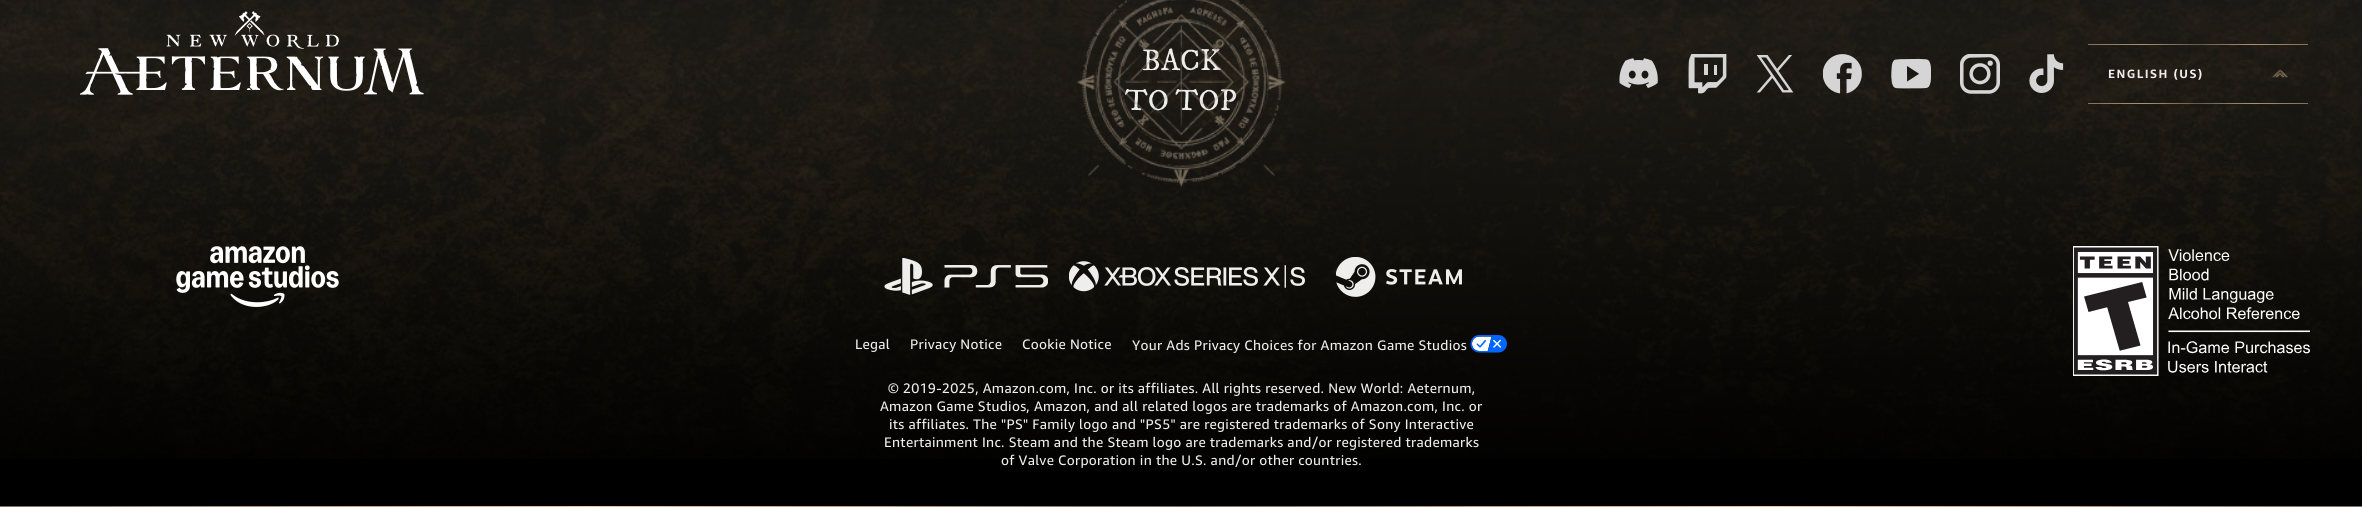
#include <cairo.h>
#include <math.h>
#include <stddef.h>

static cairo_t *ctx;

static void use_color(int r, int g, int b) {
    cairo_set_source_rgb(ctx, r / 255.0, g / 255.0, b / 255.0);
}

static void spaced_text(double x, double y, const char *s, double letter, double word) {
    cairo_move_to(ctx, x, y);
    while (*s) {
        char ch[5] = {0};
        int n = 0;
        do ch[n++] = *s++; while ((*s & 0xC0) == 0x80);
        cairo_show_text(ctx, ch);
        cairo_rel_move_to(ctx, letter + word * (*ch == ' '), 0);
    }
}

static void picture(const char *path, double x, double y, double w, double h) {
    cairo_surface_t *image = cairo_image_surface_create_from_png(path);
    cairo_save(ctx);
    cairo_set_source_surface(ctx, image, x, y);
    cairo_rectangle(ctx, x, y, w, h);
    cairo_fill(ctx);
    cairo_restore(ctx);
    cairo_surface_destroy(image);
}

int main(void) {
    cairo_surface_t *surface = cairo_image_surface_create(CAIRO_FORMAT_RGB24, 2362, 507);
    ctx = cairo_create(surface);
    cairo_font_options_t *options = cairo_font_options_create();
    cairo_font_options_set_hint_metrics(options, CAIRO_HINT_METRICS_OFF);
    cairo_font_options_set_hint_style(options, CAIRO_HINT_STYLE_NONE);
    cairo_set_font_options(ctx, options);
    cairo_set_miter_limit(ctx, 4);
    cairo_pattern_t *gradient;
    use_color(0, 0, 0);
    cairo_paint(ctx);
    picture("img1.png", 0, 0, 2362, 459);
    picture("img2.png", 80, 11, 344, 84);
    cairo_select_font_face(ctx, "IM FELL DW Pica", CAIRO_FONT_SLANT_NORMAL, CAIRO_FONT_WEIGHT_NORMAL);
    cairo_set_font_size(ctx, 30);
    use_color(238, 239, 237);
    cairo_move_to(ctx, 1142, 70);
    cairo_show_text(ctx, "BACK");
    cairo_move_to(ctx, 1125, 110);
    cairo_show_text(ctx, "TO TOP");
    picture("img3.png", 1077, 0, 209, 187);
    picture("img4.png", 1619, 58, 39, 30);
    picture("img5.png", 1688, 54, 39, 40);
    picture("img6.png", 1756, 55, 38, 38);
    picture("img7.png", 1823, 54, 39, 40);
    picture("img8.png", 1891, 58, 40, 31);
    picture("img9.png", 1960, 54, 40, 40);
    picture("img10.png", 2029, 54, 35, 39);
    cairo_select_font_face(ctx, "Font", CAIRO_FONT_SLANT_NORMAL, CAIRO_FONT_WEIGHT_BOLD);
    cairo_set_font_size(ctx, 12);
    spaced_text(2108, 78, "ENGLISH (US)", 1.5, 0);
    picture("img11.png", 2272, 69, 16, 9);
    picture("img12.png", 176, 246, 163, 61);
    picture("img13.png", 2073, 246, 237, 130);
    picture("img14.png", 884, 258, 164, 37);
    picture("img15.png", 1069, 261, 236, 31);
    picture("img16.png", 1336, 257, 126, 40);
    cairo_select_font_face(ctx, "Font", CAIRO_FONT_SLANT_NORMAL, CAIRO_FONT_WEIGHT_NORMAL);
    cairo_set_font_size(ctx, 13.75);
    spaced_text(855, 349, "Legal", 0.28, 0);
    spaced_text(910, 349, "Privacy Notice", 0.28, 0);
    spaced_text(1022, 349, "Cookie Notice", 0.28, 0);
    spaced_text(1132, 350, "Your Ads Privacy Choices for Amazon Game Studios", 0.28, 0);
    picture("img17.png", 1470, 335, 37, 18);
    spaced_text(888, 393, "© 2019-2025, Amazon.com, Inc. or its affiliates. All rights reserved. New World: Aeternum,", 0.28, 0);
    spaced_text(880, 411, "Amazon Game Studios, Amazon, and all related logos are trademarks of Amazon.com, Inc. or", 0.28, 0);
    spaced_text(889, 429, "its affiliates. The \"PS\" Family logo and \"PS5\" are registered trademarks of Sony Interactive", 0.28, 0);
    spaced_text(884, 447, "Entertainment Inc. Steam and the Steam logo are trademarks and/or registered trademarks", 0.28, 0);
    spaced_text(1001, 465, "of Valve Corporation in the U.S. and/or other countries.", 0.28, 0);
    gradient = cairo_pattern_create_linear(0, 507, 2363, 507);
    cairo_pattern_add_color_stop_rgba(gradient, 0, 0.506, 0.435, 0.349, 1);
    cairo_pattern_add_color_stop_rgba(gradient, 0.25, 0.922, 0.788, 0.627, 1);
    cairo_pattern_add_color_stop_rgba(gradient, 0.5, 0.506, 0.435, 0.349, 1);
    cairo_pattern_add_color_stop_rgba(gradient, 0.75, 0.922, 0.788, 0.627, 1);
    cairo_pattern_add_color_stop_rgba(gradient, 1, 0.506, 0.435, 0.349, 1);
    cairo_set_source(ctx, gradient);
    cairo_pattern_destroy(gradient);
    cairo_rectangle(ctx, 0, 506, 2362, 1);
    cairo_fill(ctx);
    cairo_surface_write_to_png(surface, "result.png");
    cairo_font_options_destroy(options);
    cairo_destroy(ctx);
    cairo_surface_destroy(surface);
    return 0;
}
